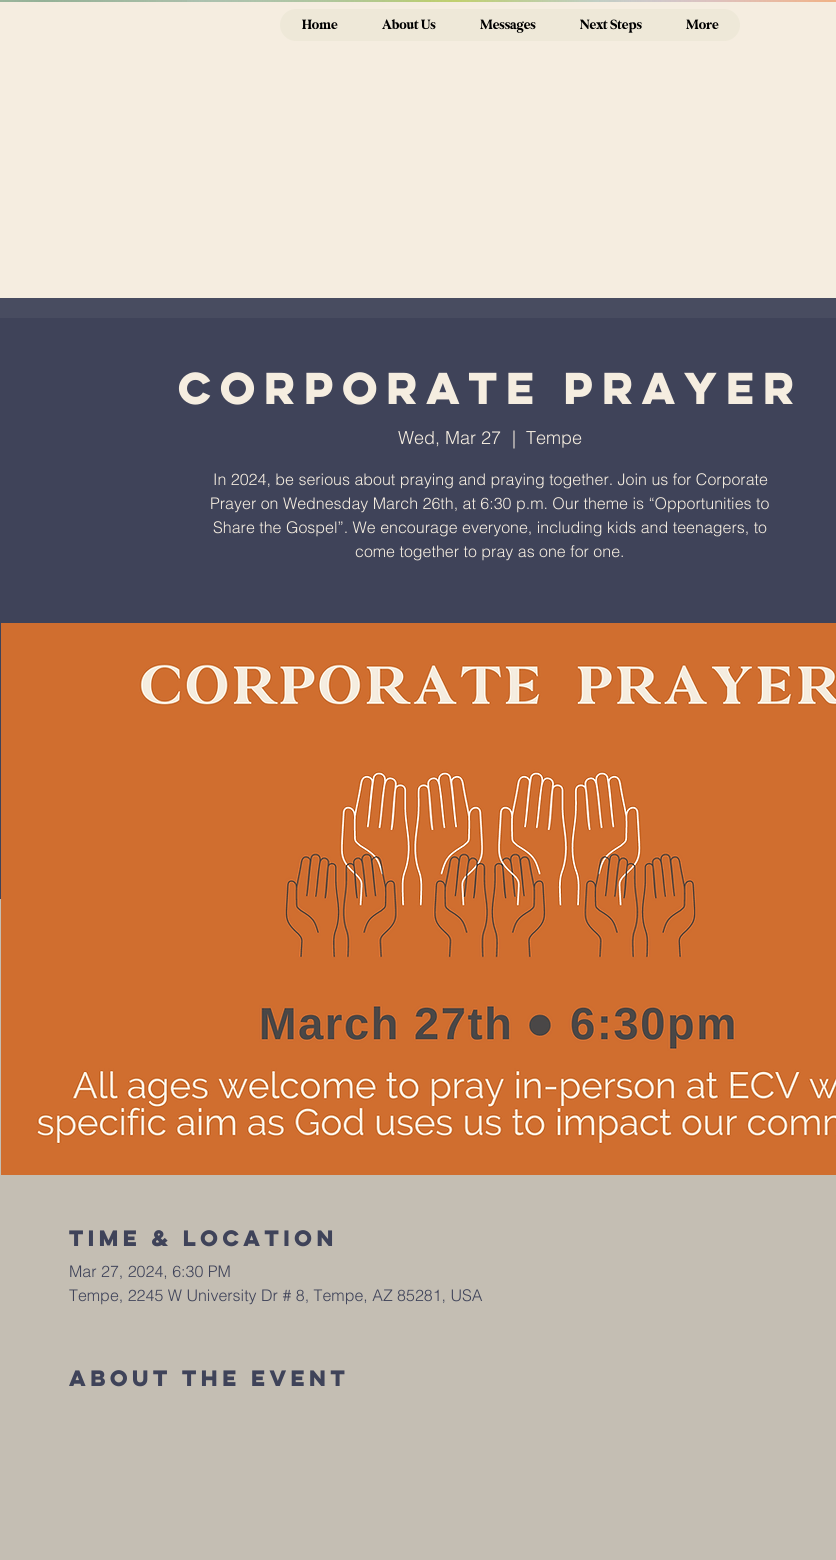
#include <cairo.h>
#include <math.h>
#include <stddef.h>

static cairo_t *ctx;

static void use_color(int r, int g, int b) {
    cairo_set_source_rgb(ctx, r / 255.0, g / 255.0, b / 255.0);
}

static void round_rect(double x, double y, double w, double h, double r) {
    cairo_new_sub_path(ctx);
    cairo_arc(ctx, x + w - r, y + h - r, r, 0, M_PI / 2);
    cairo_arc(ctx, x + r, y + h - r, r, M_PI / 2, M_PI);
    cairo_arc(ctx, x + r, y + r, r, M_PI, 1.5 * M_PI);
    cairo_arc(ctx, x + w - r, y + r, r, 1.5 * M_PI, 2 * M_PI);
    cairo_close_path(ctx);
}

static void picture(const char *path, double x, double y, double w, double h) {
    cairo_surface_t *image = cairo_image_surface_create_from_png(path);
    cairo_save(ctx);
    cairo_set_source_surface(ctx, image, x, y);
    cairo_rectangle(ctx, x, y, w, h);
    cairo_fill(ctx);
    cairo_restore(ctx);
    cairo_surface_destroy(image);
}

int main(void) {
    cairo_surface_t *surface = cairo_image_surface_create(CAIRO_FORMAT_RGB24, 836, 1560);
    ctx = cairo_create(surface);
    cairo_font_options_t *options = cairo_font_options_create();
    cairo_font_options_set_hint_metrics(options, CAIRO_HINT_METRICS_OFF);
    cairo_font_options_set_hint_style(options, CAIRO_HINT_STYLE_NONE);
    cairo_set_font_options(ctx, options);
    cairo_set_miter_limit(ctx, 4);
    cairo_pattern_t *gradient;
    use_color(245, 237, 224);
    cairo_paint(ctx);
    gradient = cairo_pattern_create_radial(501, 1.8, 0, 501, 1.8, 501);
    cairo_pattern_add_color_stop_rgba(gradient, 0, 0.576, 0.765, 1, 1);
    cairo_pattern_add_color_stop_rgba(gradient, 0.7, 0.961, 0.929, 0.878, 1);
    cairo_set_source(ctx, gradient);
    cairo_pattern_destroy(gradient);
    cairo_rectangle(ctx, 160, 0, 676, 2);
    cairo_fill(ctx);
    gradient = cairo_pattern_create_radial(456, 0.2, 0, 456, 0.2, 524);
    cairo_pattern_add_color_stop_rgba(gradient, 0, 0.839, 0.871, 0.282, 0.99);
    cairo_pattern_add_color_stop_rgba(gradient, 0.5, 0.839, 0.871, 0.282, 0);
    cairo_set_source(ctx, gradient);
    cairo_pattern_destroy(gradient);
    cairo_rectangle(ctx, 200, 0, 512, 2);
    cairo_fill(ctx);
    gradient = cairo_pattern_create_radial(42, 1.9, 0, 42, 1.9, 938);
    cairo_pattern_add_color_stop_rgba(gradient, 0, 0.592, 0.706, 0.616, 1);
    cairo_pattern_add_color_stop_rgba(gradient, 0.65, 0.592, 0.706, 0.616, 0);
    cairo_set_source(ctx, gradient);
    cairo_pattern_destroy(gradient);
    cairo_rectangle(ctx, 0, 0, 619, 2);
    cairo_fill(ctx);
    gradient = cairo_pattern_create_radial(933, 1.8, 0, 933, 1.8, 933);
    cairo_pattern_add_color_stop_rgba(gradient, 0, 0.788, 0.776, 1, 1);
    cairo_pattern_add_color_stop_rgba(gradient, 0.55, 0.788, 0.776, 1, 0);
    cairo_set_source(ctx, gradient);
    cairo_pattern_destroy(gradient);
    cairo_rectangle(ctx, 431, 0, 405, 2);
    cairo_fill(ctx);
    gradient = cairo_pattern_create_radial(911, 0.2, 0, 911, 0.2, 911);
    cairo_pattern_add_color_stop_rgba(gradient, 0, 0.98, 0.667, 0.388, 1);
    cairo_pattern_add_color_stop_rgba(gradient, 0.35, 0.98, 0.667, 0.388, 0);
    cairo_set_source(ctx, gradient);
    cairo_pattern_destroy(gradient);
    cairo_rectangle(ctx, 599, 0, 237, 2);
    cairo_fill(ctx);
    gradient = cairo_pattern_create_radial(36, 0.1, 0, 36, 0.1, 944);
    cairo_pattern_add_color_stop_rgba(gradient, 0, 0.302, 0.376, 0.004, 0.04);
    cairo_pattern_add_color_stop_rgba(gradient, 0.35, 0.302, 0.376, 0.004, 0);
    cairo_set_source(ctx, gradient);
    cairo_pattern_destroy(gradient);
    cairo_rectangle(ctx, 0, 0, 187, 2);
    cairo_fill(ctx);
    use_color(238, 232, 216);
    round_rect(280, 9, 460, 32, 16);
    cairo_fill(ctx);
    cairo_select_font_face(ctx, "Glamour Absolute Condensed", CAIRO_FONT_SLANT_NORMAL, CAIRO_FONT_WEIGHT_NORMAL);
    cairo_set_font_size(ctx, 15);
    use_color(0, 0, 0);
    cairo_move_to(ctx, 302, 29);
    cairo_show_text(ctx, "Home");
    cairo_move_to(ctx, 382, 29);
    cairo_show_text(ctx, "About Us");
    cairo_move_to(ctx, 480, 29);
    cairo_show_text(ctx, "Messages");
    cairo_move_to(ctx, 580, 29);
    cairo_show_text(ctx, "Next Steps");
    cairo_move_to(ctx, 686, 29);
    cairo_show_text(ctx, "More");
    use_color(63, 67, 89);
    cairo_rectangle(ctx, 0, 318, 836, 581);
    cairo_fill(ctx);
    use_color(72, 76, 96);
    cairo_rectangle(ctx, 0, 298, 836, 20);
    cairo_fill(ctx);
    cairo_select_font_face(ctx, "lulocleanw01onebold", CAIRO_FONT_SLANT_NORMAL, CAIRO_FONT_WEIGHT_BOLD);
    cairo_set_font_size(ctx, 40);
    use_color(245, 237, 224);
    cairo_move_to(ctx, 178, 404);
    cairo_show_text(ctx, "Corporate Prayer");
    cairo_select_font_face(ctx, "helvetica Light", CAIRO_FONT_SLANT_NORMAL, CAIRO_FONT_WEIGHT_NORMAL);
    cairo_set_font_size(ctx, 18);
    cairo_move_to(ctx, 398, 444);
    cairo_show_text(ctx, "Wed, Mar 27");
    cairo_move_to(ctx, 512, 444);
    cairo_show_text(ctx, "|");
    cairo_move_to(ctx, 526, 444);
    cairo_show_text(ctx, "Tempe");
    cairo_set_font_size(ctx, 16);
    cairo_move_to(ctx, 213, 485);
    cairo_show_text(ctx, "In 2024, be serious about praying and praying together. Join us for Corporate");
    cairo_move_to(ctx, 210, 509);
    cairo_show_text(ctx, "Prayer on Wednesday March 26th, at 6:30 p.m. Our theme is “Opportunities to");
    cairo_move_to(ctx, 213, 533);
    cairo_show_text(ctx, "Share the Gospel”. We encourage everyone, including kids and teenagers, to");
    cairo_move_to(ctx, 355, 557);
    cairo_show_text(ctx, "come together to pray as one for one.");
    use_color(196, 190, 179);
    cairo_rectangle(ctx, 0, 899, 836, 661);
    cairo_fill(ctx);
    picture("img1.png", 1, 623, 835, 552);
    cairo_select_font_face(ctx, "lulocleanw01onebold", CAIRO_FONT_SLANT_NORMAL, CAIRO_FONT_WEIGHT_BOLD);
    cairo_set_font_size(ctx, 20);
    use_color(63, 67, 89);
    cairo_move_to(ctx, 69, 1246);
    cairo_show_text(ctx, "Time & Location");
    cairo_select_font_face(ctx, "helvetica Light", CAIRO_FONT_SLANT_NORMAL, CAIRO_FONT_WEIGHT_NORMAL);
    cairo_set_font_size(ctx, 16);
    cairo_move_to(ctx, 69, 1277);
    cairo_show_text(ctx, "Mar 27, 2024, 6:30 PM");
    cairo_move_to(ctx, 69, 1301);
    cairo_show_text(ctx, "Tempe, 2245 W University Dr # 8, Tempe, AZ 85281, USA");
    cairo_select_font_face(ctx, "lulocleanw01onebold", CAIRO_FONT_SLANT_NORMAL, CAIRO_FONT_WEIGHT_BOLD);
    cairo_set_font_size(ctx, 20);
    cairo_move_to(ctx, 69, 1386);
    cairo_show_text(ctx, "About the event");
    cairo_surface_write_to_png(surface, "result.png");
    cairo_font_options_destroy(options);
    cairo_destroy(ctx);
    cairo_surface_destroy(surface);
    return 0;
}
